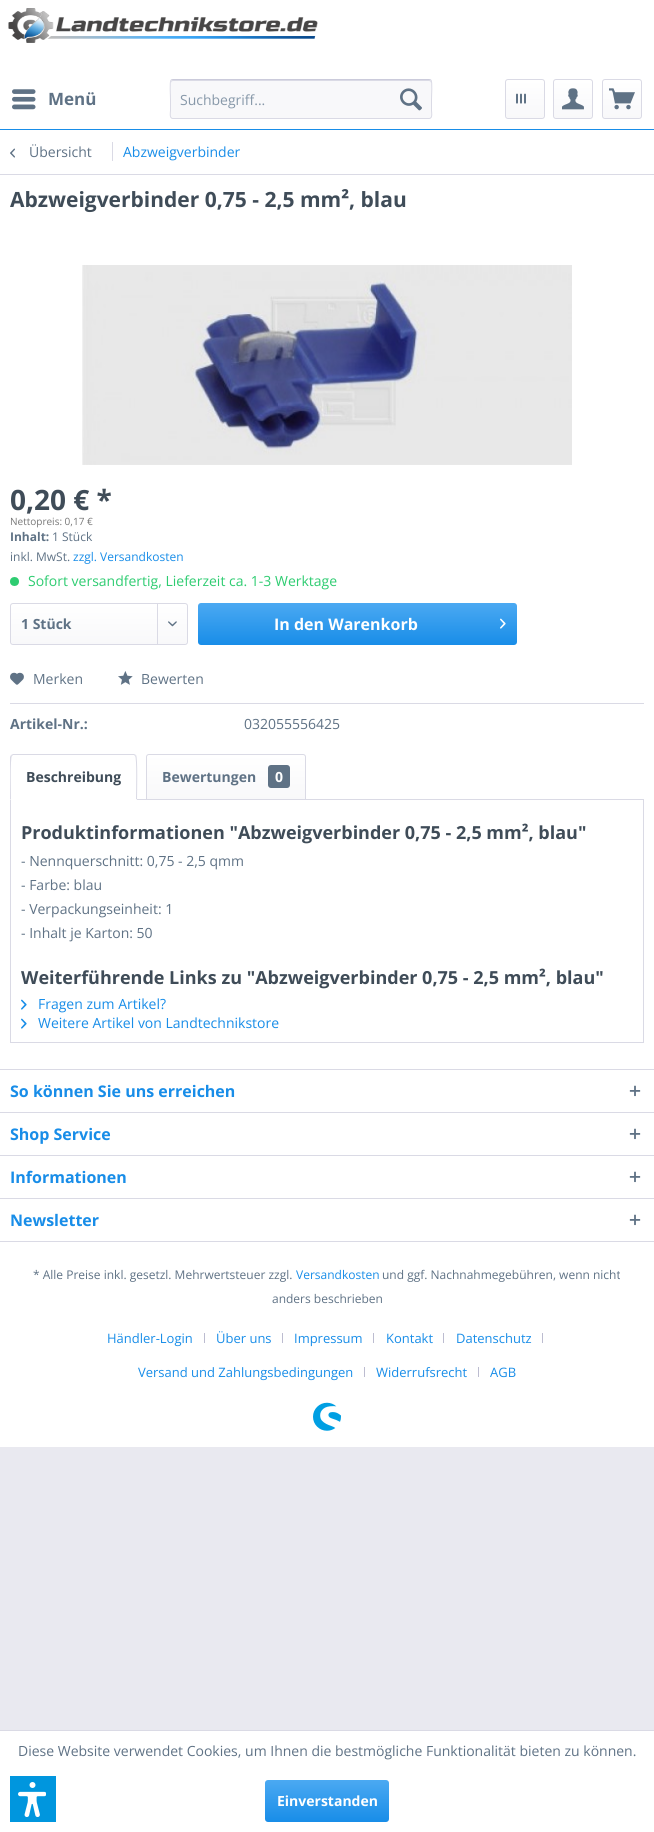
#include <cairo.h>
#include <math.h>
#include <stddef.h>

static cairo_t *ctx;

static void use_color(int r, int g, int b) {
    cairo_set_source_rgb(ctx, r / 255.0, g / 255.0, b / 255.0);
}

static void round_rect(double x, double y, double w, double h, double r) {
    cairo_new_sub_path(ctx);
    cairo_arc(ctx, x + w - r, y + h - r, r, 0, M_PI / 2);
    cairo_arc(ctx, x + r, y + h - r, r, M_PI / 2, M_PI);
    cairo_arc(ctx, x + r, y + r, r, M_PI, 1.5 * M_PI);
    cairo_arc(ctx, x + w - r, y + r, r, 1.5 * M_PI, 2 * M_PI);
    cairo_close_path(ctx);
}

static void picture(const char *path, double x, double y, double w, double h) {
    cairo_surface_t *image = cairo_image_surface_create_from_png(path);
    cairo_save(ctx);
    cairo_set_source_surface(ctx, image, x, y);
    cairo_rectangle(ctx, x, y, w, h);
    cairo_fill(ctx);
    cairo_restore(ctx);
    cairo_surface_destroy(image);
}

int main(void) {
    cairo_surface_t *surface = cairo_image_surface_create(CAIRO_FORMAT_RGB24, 654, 1832);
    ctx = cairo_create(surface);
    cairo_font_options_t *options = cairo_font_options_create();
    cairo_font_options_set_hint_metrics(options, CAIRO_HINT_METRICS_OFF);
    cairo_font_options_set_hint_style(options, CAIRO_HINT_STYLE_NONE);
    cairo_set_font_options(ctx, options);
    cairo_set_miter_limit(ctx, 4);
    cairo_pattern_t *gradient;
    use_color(233, 233, 240);
    cairo_paint(ctx);
    use_color(255, 255, 255);
    cairo_rectangle(ctx, 0, 0, 654, 129);
    cairo_fill(ctx);
    use_color(24, 141, 232);
    cairo_rectangle(ctx, 0, 129, 654, 1);
    cairo_fill(ctx);
    picture("img1.png", 8, 8, 310, 35);
    picture("img2.png", 12, 89, 24, 21);
    cairo_select_font_face(ctx, "Open Sans", CAIRO_FONT_SLANT_NORMAL, CAIRO_FONT_WEIGHT_BOLD);
    cairo_set_font_size(ctx, 17);
    use_color(95, 114, 133);
    cairo_move_to(ctx, 48, 105);
    cairo_show_text(ctx, "Menü");
    use_color(248, 248, 250);
    round_rect(170, 79, 262, 40, 3);
    cairo_fill(ctx);
    use_color(218, 218, 229);
    cairo_new_path(ctx);
    cairo_move_to(ctx, 173, 81);
    cairo_line_to(ctx, 429, 81);
    cairo_curve_to(ctx, 430, 81, 431, 82, 431, 83);
    cairo_line_to(ctx, 431, 82);
    cairo_curve_to(ctx, 431, 81, 430, 80, 429, 80);
    cairo_line_to(ctx, 173, 80);
    cairo_curve_to(ctx, 172, 80, 171, 81, 171, 82);
    cairo_line_to(ctx, 171, 83);
    cairo_curve_to(ctx, 171, 82, 172, 81, 173, 81);
    cairo_close_path(ctx);
    cairo_fill(ctx);
    cairo_new_path(ctx);
    cairo_move_to(ctx, 171, 80);
    cairo_line_to(ctx, 173, 79.5);
    cairo_line_to(ctx, 429, 79.5);
    cairo_line_to(ctx, 431, 80);
    use_color(203, 203, 219);
    cairo_set_line_width(ctx, 1);
    cairo_stroke(ctx);
    cairo_new_path(ctx);
    cairo_move_to(ctx, 431, 80);
    cairo_curve_to(ctx, 432.5, 82, 431.5, 96, 431.5, 99);
    cairo_line_to(ctx, 431.5, 110.5);
    cairo_curve_to(ctx, 431.5, 112, 433, 118.5, 429, 118.5);
    cairo_line_to(ctx, 173, 118.5);
    cairo_curve_to(ctx, 169, 118.5, 170.5, 112, 170.5, 110.5);
    cairo_line_to(ctx, 170.5, 99);
    cairo_curve_to(ctx, 170.5, 96, 169.5, 82, 171, 80);
    use_color(218, 218, 229);
    cairo_stroke(ctx);
    cairo_select_font_face(ctx, "Open Sans", CAIRO_FONT_SLANT_NORMAL, CAIRO_FONT_WEIGHT_NORMAL);
    cairo_set_font_size(ctx, 14);
    use_color(135, 152, 169);
    cairo_move_to(ctx, 180, 105);
    cairo_show_text(ctx, "Suchbegriff...");
    picture("img3.png", 400, 88, 22, 23);
    gradient = cairo_pattern_create_linear(525, 80, 525, 118);
    cairo_pattern_add_color_stop_rgba(gradient, 0, 1, 1, 1, 1);
    cairo_pattern_add_color_stop_rgba(gradient, 1, 0.973, 0.973, 0.98, 1);
    cairo_set_source(ctx, gradient);
    cairo_pattern_destroy(gradient);
    round_rect(506, 80, 38, 38, 2);
    cairo_fill(ctx);
    round_rect(505.5, 79.5, 39, 39, 2.5);
    use_color(218, 218, 229);
    cairo_stroke(ctx);
    picture("img4.png", 516, 93, 10, 11);
    gradient = cairo_pattern_create_linear(573, 80, 573, 118);
    cairo_pattern_add_color_stop_rgba(gradient, 0, 1, 1, 1, 1);
    cairo_pattern_add_color_stop_rgba(gradient, 1, 0.973, 0.973, 0.98, 1);
    cairo_set_source(ctx, gradient);
    cairo_pattern_destroy(gradient);
    round_rect(554, 80, 38, 38, 2);
    cairo_fill(ctx);
    round_rect(553.5, 79.5, 39, 39, 2.5);
    use_color(218, 218, 229);
    cairo_stroke(ctx);
    picture("img5.png", 562, 88, 22, 22);
    gradient = cairo_pattern_create_linear(622, 80, 622, 118);
    cairo_pattern_add_color_stop_rgba(gradient, 0, 1, 1, 1, 1);
    cairo_pattern_add_color_stop_rgba(gradient, 1, 0.973, 0.973, 0.98, 1);
    cairo_set_source(ctx, gradient);
    cairo_pattern_destroy(gradient);
    round_rect(603, 80, 38, 38, 2);
    cairo_fill(ctx);
    round_rect(602.5, 79.5, 39, 39, 2.5);
    use_color(218, 218, 229);
    cairo_stroke(ctx);
    picture("img6.png", 609, 88, 26, 22);
    use_color(255, 255, 255);
    cairo_rectangle(ctx, 0, 130, 654, 939);
    cairo_fill(ctx);
    use_color(218, 218, 229);
    cairo_rectangle(ctx, 0, 174, 654, 1);
    cairo_fill(ctx);
    picture("img7.png", 10, 148, 5, 10);
    use_color(95, 114, 133);
    cairo_move_to(ctx, 29, 157);
    cairo_show_text(ctx, "Übersicht");
    use_color(218, 218, 229);
    cairo_rectangle(ctx, 112, 142, 1, 19);
    cairo_fill(ctx);
    use_color(24, 141, 232);
    cairo_move_to(ctx, 123, 157);
    cairo_show_text(ctx, "Abzweigverbinder");
    cairo_select_font_face(ctx, "Open Sans", CAIRO_FONT_SLANT_NORMAL, CAIRO_FONT_WEIGHT_BOLD);
    cairo_set_font_size(ctx, 21);
    use_color(63, 76, 88);
    cairo_move_to(ctx, 10, 207);
    cairo_show_text(ctx, "Abzweigverbinder 0,75 - 2,5 mm², blau");
    picture("img8.png", 82, 265, 490, 200);
    cairo_set_font_size(ctx, 28);
    cairo_move_to(ctx, 10, 510);
    cairo_show_text(ctx, "0,20 € *");
    cairo_select_font_face(ctx, "Open Sans", CAIRO_FONT_SLANT_NORMAL, CAIRO_FONT_WEIGHT_NORMAL);
    cairo_set_font_size(ctx, 10);
    use_color(119, 119, 119);
    cairo_move_to(ctx, 10, 525);
    cairo_show_text(ctx, "Nettopreis: 0,17 €");
    cairo_select_font_face(ctx, "Open Sans", CAIRO_FONT_SLANT_NORMAL, CAIRO_FONT_WEIGHT_BOLD);
    cairo_set_font_size(ctx, 12);
    use_color(95, 114, 133);
    cairo_move_to(ctx, 10, 541);
    cairo_show_text(ctx, "Inhalt:");
    cairo_select_font_face(ctx, "Open Sans", CAIRO_FONT_SLANT_NORMAL, CAIRO_FONT_WEIGHT_NORMAL);
    cairo_move_to(ctx, 52, 541);
    cairo_show_text(ctx, "1 Stück");
    cairo_move_to(ctx, 10, 561);
    cairo_show_text(ctx, "inkl. MwSt.");
    use_color(24, 141, 232);
    cairo_move_to(ctx, 73, 561);
    cairo_show_text(ctx, "zzgl. Versandkosten");
    use_color(46, 204, 113);
    cairo_new_path(ctx);
    cairo_arc(ctx, 14.5, 581.5, 4.5, 0, 2 * M_PI);
    cairo_fill(ctx);
    cairo_set_font_size(ctx, 14);
    cairo_move_to(ctx, 28, 586);
    cairo_show_text(ctx, "Sofort versandfertig, Lieferzeit ca. 1-3 Werktage");
    gradient = cairo_pattern_create_linear(99, 604, 99, 644);
    cairo_pattern_add_color_stop_rgba(gradient, 0, 1, 1, 1, 1);
    cairo_pattern_add_color_stop_rgba(gradient, 1, 0.973, 0.973, 0.98, 1);
    cairo_set_source(ctx, gradient);
    cairo_pattern_destroy(gradient);
    round_rect(11, 604, 176, 40, 2);
    cairo_fill(ctx);
    round_rect(10.5, 603.5, 177, 41, 2.5);
    use_color(218, 218, 229);
    cairo_stroke(ctx);
    cairo_select_font_face(ctx, "Open Sans", CAIRO_FONT_SLANT_NORMAL, CAIRO_FONT_WEIGHT_BOLD);
    use_color(95, 114, 133);
    cairo_move_to(ctx, 21, 629);
    cairo_show_text(ctx, "1 Stück");
    use_color(218, 218, 229);
    cairo_rectangle(ctx, 157, 604, 1, 40);
    cairo_fill(ctx);
    picture("img9.png", 168, 621, 9, 6);
    gradient = cairo_pattern_create_linear(358, 603, 358, 645);
    cairo_pattern_add_color_stop_rgba(gradient, 0, 0.294, 0.663, 0.949, 1);
    cairo_pattern_add_color_stop_rgba(gradient, 1, 0.094, 0.553, 0.91, 1);
    cairo_set_source(ctx, gradient);
    cairo_pattern_destroy(gradient);
    round_rect(198, 603, 319, 42, 3);
    cairo_fill(ctx);
    cairo_set_font_size(ctx, 16);
    use_color(255, 255, 255);
    cairo_move_to(ctx, 274, 630);
    cairo_show_text(ctx, "In den Warenkorb");
    picture("img10.png", 500, 618, 6, 11);
    use_color(218, 218, 229);
    cairo_rectangle(ctx, 10, 703, 634, 1);
    cairo_fill(ctx);
    picture("img11.png", 10, 672, 14, 13);
    cairo_select_font_face(ctx, "Open Sans", CAIRO_FONT_SLANT_NORMAL, CAIRO_FONT_WEIGHT_NORMAL);
    cairo_set_font_size(ctx, 14);
    use_color(95, 114, 133);
    cairo_move_to(ctx, 33, 684);
    cairo_show_text(ctx, "Merken");
    picture("img12.png", 118, 671, 15, 14);
    cairo_move_to(ctx, 141, 684);
    cairo_show_text(ctx, "Bewerten");
    cairo_select_font_face(ctx, "Open Sans", CAIRO_FONT_SLANT_NORMAL, CAIRO_FONT_WEIGHT_BOLD);
    cairo_move_to(ctx, 10, 729);
    cairo_show_text(ctx, "Artikel-Nr.:");
    cairo_select_font_face(ctx, "Open Sans", CAIRO_FONT_SLANT_NORMAL, CAIRO_FONT_WEIGHT_NORMAL);
    cairo_move_to(ctx, 244, 729);
    cairo_show_text(ctx, "032055556425");
    cairo_rectangle(ctx, 10.5, 799.5, 633, 243);
    use_color(218, 218, 229);
    cairo_stroke(ctx);
    use_color(255, 255, 255);
    cairo_new_path(ctx);
    cairo_move_to(ctx, 13, 754);
    cairo_line_to(ctx, 134, 754);
    cairo_curve_to(ctx, 135.5, 754, 137, 755.5, 137, 757);
    cairo_line_to(ctx, 137, 800);
    cairo_line_to(ctx, 10, 800);
    cairo_line_to(ctx, 10, 757);
    cairo_curve_to(ctx, 10, 755.5, 11.5, 754, 13, 754);
    cairo_close_path(ctx);
    cairo_fill(ctx);
    use_color(218, 218, 229);
    cairo_new_path(ctx);
    cairo_move_to(ctx, 13, 754);
    cairo_line_to(ctx, 11, 755);
    cairo_line_to(ctx, 12, 756);
    cairo_line_to(ctx, 13, 755);
    cairo_line_to(ctx, 134, 755);
    cairo_line_to(ctx, 135, 756);
    cairo_line_to(ctx, 136, 755);
    cairo_line_to(ctx, 134, 754);
    cairo_close_path(ctx);
    cairo_fill(ctx);
    cairo_new_path(ctx);
    cairo_move_to(ctx, 137, 800);
    cairo_curve_to(ctx, 137, 795, 138, 757, 136, 755);
    cairo_line_to(ctx, 135, 756);
    cairo_curve_to(ctx, 137, 757, 136, 794, 136, 799);
    cairo_close_path(ctx);
    cairo_fill(ctx);
    use_color(255, 255, 255);
    cairo_new_path(ctx);
    cairo_move_to(ctx, 137, 800);
    cairo_line_to(ctx, 136, 799);
    cairo_line_to(ctx, 11, 799);
    cairo_line_to(ctx, 10, 800);
    cairo_close_path(ctx);
    cairo_fill(ctx);
    use_color(218, 218, 229);
    cairo_new_path(ctx);
    cairo_move_to(ctx, 10, 800);
    cairo_line_to(ctx, 11, 799);
    cairo_curve_to(ctx, 11, 794, 10, 757, 12, 756);
    cairo_line_to(ctx, 11, 755);
    cairo_line_to(ctx, 10, 757);
    cairo_close_path(ctx);
    cairo_fill(ctx);
    cairo_select_font_face(ctx, "Open Sans", CAIRO_FONT_SLANT_NORMAL, CAIRO_FONT_WEIGHT_BOLD);
    use_color(63, 76, 88);
    cairo_move_to(ctx, 26, 782);
    cairo_show_text(ctx, "Beschreibung");
    gradient = cairo_pattern_create_linear(226, 755, 226, 799);
    cairo_pattern_add_color_stop_rgba(gradient, 0, 1, 1, 1, 1);
    cairo_pattern_add_color_stop_rgba(gradient, 1, 0.973, 0.973, 0.98, 1);
    cairo_set_source(ctx, gradient);
    cairo_pattern_destroy(gradient);
    cairo_new_path(ctx);
    cairo_move_to(ctx, 149, 755);
    cairo_line_to(ctx, 303, 755);
    cairo_curve_to(ctx, 304, 755, 305, 756, 305, 757);
    cairo_line_to(ctx, 305, 799);
    cairo_line_to(ctx, 147, 799);
    cairo_line_to(ctx, 147, 757);
    cairo_curve_to(ctx, 147, 756, 148, 755, 149, 755);
    cairo_close_path(ctx);
    cairo_fill(ctx);
    cairo_new_path(ctx);
    cairo_move_to(ctx, 149, 754.5);
    cairo_line_to(ctx, 303, 754.5);
    cairo_curve_to(ctx, 304.5, 754.5, 305.5, 755.5, 305.5, 757);
    cairo_line_to(ctx, 305.5, 799.5);
    cairo_line_to(ctx, 146.5, 799.5);
    cairo_line_to(ctx, 146.5, 757);
    cairo_curve_to(ctx, 146.5, 755.5, 147.5, 754.5, 149, 754.5);
    cairo_close_path(ctx);
    use_color(218, 218, 229);
    cairo_stroke(ctx);
    use_color(95, 114, 133);
    cairo_move_to(ctx, 162, 782);
    cairo_show_text(ctx, "Bewertungen");
    round_rect(268, 765, 22, 23, 3);
    cairo_fill(ctx);
    use_color(255, 255, 255);
    cairo_move_to(ctx, 275, 782);
    cairo_show_text(ctx, "0");
    cairo_set_font_size(ctx, 18);
    use_color(63, 76, 88);
    cairo_move_to(ctx, 21, 839);
    cairo_show_text(ctx, "Produktinformationen \"Abzweigverbinder 0,75 - 2,5 mm², blau\"");
    cairo_select_font_face(ctx, "Open Sans", CAIRO_FONT_SLANT_NORMAL, CAIRO_FONT_WEIGHT_NORMAL);
    cairo_set_font_size(ctx, 14);
    use_color(95, 114, 133);
    cairo_move_to(ctx, 21, 866);
    cairo_show_text(ctx, "- Nennquerschnitt: 0,75 - 2,5 qmm");
    cairo_move_to(ctx, 21, 890);
    cairo_show_text(ctx, "- Farbe: blau");
    cairo_move_to(ctx, 21, 914);
    cairo_show_text(ctx, "- Verpackungseinheit: 1");
    cairo_move_to(ctx, 21, 938);
    cairo_show_text(ctx, "- Inhalt je Karton: 50");
    cairo_select_font_face(ctx, "Open Sans", CAIRO_FONT_SLANT_NORMAL, CAIRO_FONT_WEIGHT_BOLD);
    cairo_set_font_size(ctx, 18);
    use_color(63, 76, 88);
    cairo_move_to(ctx, 21, 984);
    cairo_show_text(ctx, "Weiterführende Links zu \"Abzweigverbinder 0,75 - 2,5 mm², blau\"");
    picture("img13.png", 21, 999, 6, 11);
    cairo_select_font_face(ctx, "Open Sans", CAIRO_FONT_SLANT_NORMAL, CAIRO_FONT_WEIGHT_NORMAL);
    cairo_set_font_size(ctx, 14);
    use_color(24, 141, 232);
    cairo_move_to(ctx, 38, 1009);
    cairo_show_text(ctx, "Fragen zum Artikel?");
    picture("img13.png", 21, 1018, 6, 11);
    cairo_move_to(ctx, 38, 1028);
    cairo_show_text(ctx, "Weitere Artikel von Landtechnikstore");
    use_color(255, 255, 255);
    cairo_rectangle(ctx, 0, 1070, 654, 377);
    cairo_fill(ctx);
    use_color(218, 218, 229);
    cairo_rectangle(ctx, 0, 1069, 654, 1);
    cairo_fill(ctx);
    cairo_select_font_face(ctx, "Open Sans", CAIRO_FONT_SLANT_NORMAL, CAIRO_FONT_WEIGHT_BOLD);
    cairo_set_font_size(ctx, 16);
    use_color(24, 141, 232);
    cairo_move_to(ctx, 10, 1097);
    cairo_show_text(ctx, "So können Sie uns erreichen");
    picture("img14.png", 629, 1085, 12, 12);
    use_color(218, 218, 229);
    cairo_rectangle(ctx, 0, 1112, 654, 1);
    cairo_fill(ctx);
    use_color(24, 141, 232);
    cairo_move_to(ctx, 10, 1140);
    cairo_show_text(ctx, "Shop Service");
    picture("img14.png", 629, 1128, 12, 12);
    use_color(218, 218, 229);
    cairo_rectangle(ctx, 0, 1155, 654, 1);
    cairo_fill(ctx);
    use_color(24, 141, 232);
    cairo_move_to(ctx, 10, 1183);
    cairo_show_text(ctx, "Informationen");
    picture("img14.png", 629, 1171, 12, 12);
    use_color(218, 218, 229);
    cairo_rectangle(ctx, 0, 1198, 654, 1);
    cairo_fill(ctx);
    cairo_rectangle(ctx, 0, 1241, 654, 1);
    cairo_fill(ctx);
    use_color(24, 141, 232);
    cairo_move_to(ctx, 10, 1226);
    cairo_show_text(ctx, "Newsletter");
    picture("img14.png", 629, 1214, 12, 12);
    cairo_select_font_face(ctx, "Open Sans", CAIRO_FONT_SLANT_NORMAL, CAIRO_FONT_WEIGHT_NORMAL);
    cairo_set_font_size(ctx, 12);
    use_color(95, 114, 133);
    cairo_move_to(ctx, 33, 1279);
    cairo_show_text(ctx, "* Alle Preise inkl. gesetzl. Mehrwertsteuer zzgl.");
    use_color(24, 141, 232);
    cairo_move_to(ctx, 296, 1279);
    cairo_show_text(ctx, "Versandkosten");
    use_color(95, 114, 133);
    cairo_move_to(ctx, 382, 1279);
    cairo_show_text(ctx, "und ggf. Nachnahmegebühren, wenn nicht");
    cairo_move_to(ctx, 272, 1303);
    cairo_show_text(ctx, "anders beschrieben");
    cairo_set_font_size(ctx, 13);
    use_color(24, 141, 232);
    cairo_move_to(ctx, 107, 1343);
    cairo_show_text(ctx, "Händler-Login");
    use_color(188, 188, 208);
    cairo_rectangle(ctx, 204, 1333, 1, 10);
    cairo_fill(ctx);
    use_color(24, 141, 232);
    cairo_move_to(ctx, 216, 1343);
    cairo_show_text(ctx, "Über uns");
    use_color(188, 188, 208);
    cairo_rectangle(ctx, 282, 1333, 1, 10);
    cairo_fill(ctx);
    use_color(24, 141, 232);
    cairo_move_to(ctx, 294, 1343);
    cairo_show_text(ctx, "Impressum");
    use_color(188, 188, 208);
    cairo_rectangle(ctx, 373, 1333, 1, 10);
    cairo_fill(ctx);
    use_color(24, 141, 232);
    cairo_move_to(ctx, 386, 1343);
    cairo_show_text(ctx, "Kontakt");
    use_color(188, 188, 208);
    cairo_rectangle(ctx, 443, 1333, 1, 10);
    cairo_fill(ctx);
    use_color(24, 141, 232);
    cairo_move_to(ctx, 456, 1343);
    cairo_show_text(ctx, "Datenschutz");
    use_color(188, 188, 208);
    cairo_rectangle(ctx, 542, 1333, 1, 10);
    cairo_fill(ctx);
    use_color(24, 141, 232);
    cairo_move_to(ctx, 138, 1377);
    cairo_show_text(ctx, "Versand und Zahlungsbedingungen");
    use_color(188, 188, 208);
    cairo_rectangle(ctx, 364, 1367, 1, 10);
    cairo_fill(ctx);
    use_color(24, 141, 232);
    cairo_move_to(ctx, 376, 1377);
    cairo_show_text(ctx, "Widerrufsrecht");
    use_color(188, 188, 208);
    cairo_rectangle(ctx, 478, 1367, 1, 10);
    cairo_fill(ctx);
    use_color(24, 141, 232);
    cairo_move_to(ctx, 490, 1377);
    cairo_show_text(ctx, "AGB");
    picture("img15.png", 313, 1402, 28, 29);
    use_color(255, 255, 255);
    cairo_rectangle(ctx, 0, 1731, 654, 101);
    cairo_fill(ctx);
    use_color(218, 218, 229);
    cairo_rectangle(ctx, 0, 1730, 654, 1);
    cairo_fill(ctx);
    cairo_set_font_size(ctx, 14);
    use_color(95, 114, 133);
    cairo_move_to(ctx, 18, 1756);
    cairo_show_text(ctx, "Diese Website verwendet Cookies, um Ihnen die bestmögliche Funktionalität bieten zu können.");
    gradient = cairo_pattern_create_linear(327, 1780, 327, 1822);
    cairo_pattern_add_color_stop_rgba(gradient, 0, 0.294, 0.663, 0.949, 1);
    cairo_pattern_add_color_stop_rgba(gradient, 1, 0.094, 0.553, 0.91, 1);
    cairo_set_source(ctx, gradient);
    cairo_pattern_destroy(gradient);
    round_rect(265, 1780, 124, 42, 3);
    cairo_fill(ctx);
    cairo_select_font_face(ctx, "Open Sans", CAIRO_FONT_SLANT_NORMAL, CAIRO_FONT_WEIGHT_BOLD);
    use_color(255, 255, 255);
    cairo_move_to(ctx, 277, 1806);
    cairo_show_text(ctx, "Einverstanden");
    use_color(0, 150, 222);
    cairo_rectangle(ctx, 10, 1776, 46, 46);
    cairo_fill(ctx);
    picture("img16.png", 18, 1782, 28, 35);
    cairo_surface_write_to_png(surface, "result.png");
    cairo_font_options_destroy(options);
    cairo_destroy(ctx);
    cairo_surface_destroy(surface);
    return 0;
}
